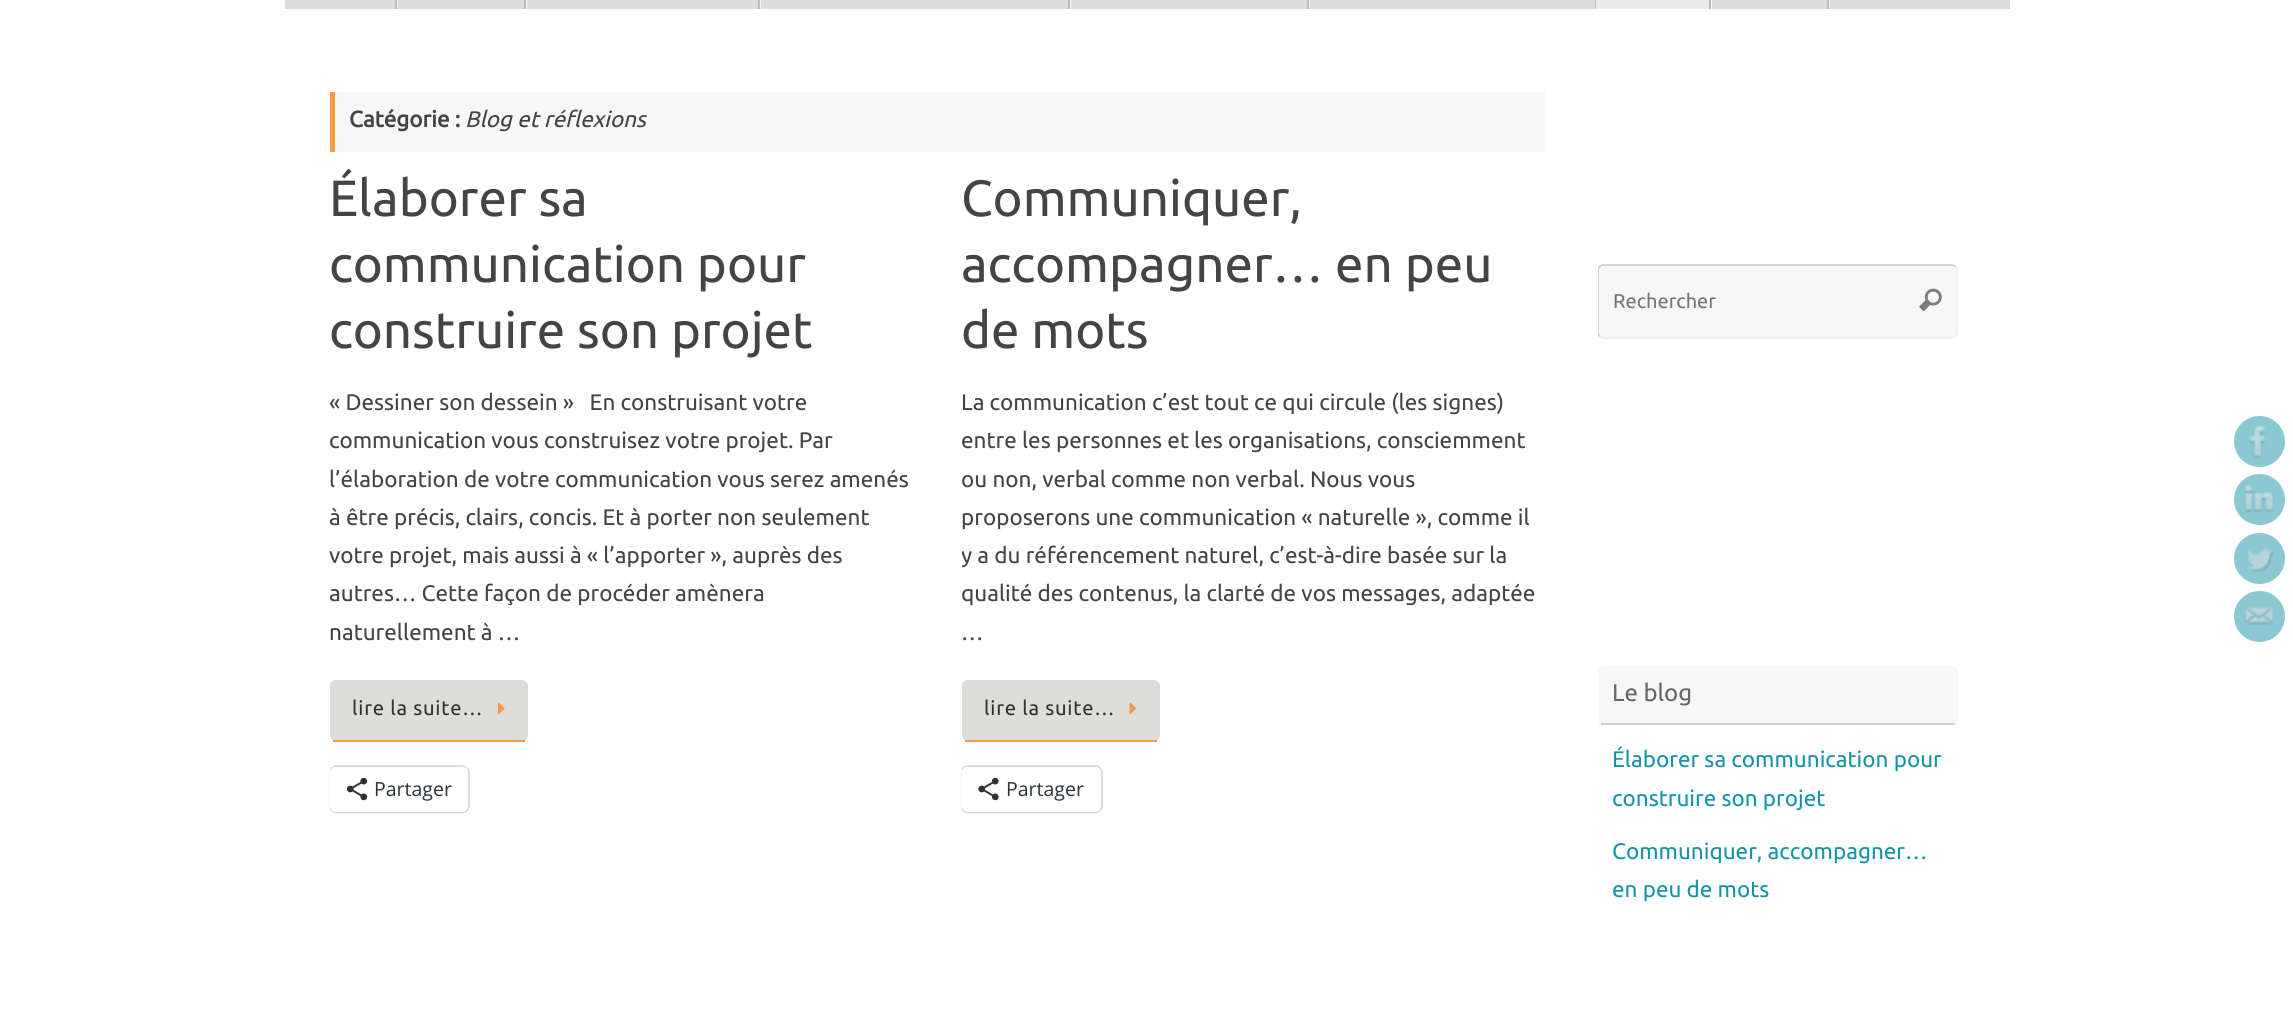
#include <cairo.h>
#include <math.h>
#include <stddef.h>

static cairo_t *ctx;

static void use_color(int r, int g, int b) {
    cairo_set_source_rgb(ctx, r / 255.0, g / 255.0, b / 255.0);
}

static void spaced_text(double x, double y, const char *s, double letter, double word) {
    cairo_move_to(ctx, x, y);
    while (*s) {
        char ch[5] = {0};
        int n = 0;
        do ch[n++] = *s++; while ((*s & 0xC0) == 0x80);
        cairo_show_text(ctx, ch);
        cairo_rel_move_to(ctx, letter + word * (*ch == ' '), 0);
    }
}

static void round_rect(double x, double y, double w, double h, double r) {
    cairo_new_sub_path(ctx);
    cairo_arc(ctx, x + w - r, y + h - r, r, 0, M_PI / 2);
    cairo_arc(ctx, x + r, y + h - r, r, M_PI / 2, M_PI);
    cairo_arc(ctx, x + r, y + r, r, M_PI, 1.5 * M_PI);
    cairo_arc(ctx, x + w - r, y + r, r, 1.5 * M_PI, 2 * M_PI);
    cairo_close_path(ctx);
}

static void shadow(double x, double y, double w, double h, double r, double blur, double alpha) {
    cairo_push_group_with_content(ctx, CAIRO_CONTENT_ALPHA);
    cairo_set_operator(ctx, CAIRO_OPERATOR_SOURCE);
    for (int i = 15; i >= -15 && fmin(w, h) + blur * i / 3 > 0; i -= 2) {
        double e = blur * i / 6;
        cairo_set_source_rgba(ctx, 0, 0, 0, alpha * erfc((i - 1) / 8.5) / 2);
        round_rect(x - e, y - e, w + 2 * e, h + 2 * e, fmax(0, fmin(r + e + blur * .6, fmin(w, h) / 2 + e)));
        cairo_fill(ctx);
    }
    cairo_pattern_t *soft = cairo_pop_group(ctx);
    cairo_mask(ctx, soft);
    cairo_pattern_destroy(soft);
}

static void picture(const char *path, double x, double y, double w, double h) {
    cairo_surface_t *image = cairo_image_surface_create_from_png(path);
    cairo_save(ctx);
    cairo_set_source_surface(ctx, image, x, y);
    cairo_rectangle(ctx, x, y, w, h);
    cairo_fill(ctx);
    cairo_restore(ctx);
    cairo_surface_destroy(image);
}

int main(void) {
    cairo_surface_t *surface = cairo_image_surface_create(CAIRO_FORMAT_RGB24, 2293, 1020);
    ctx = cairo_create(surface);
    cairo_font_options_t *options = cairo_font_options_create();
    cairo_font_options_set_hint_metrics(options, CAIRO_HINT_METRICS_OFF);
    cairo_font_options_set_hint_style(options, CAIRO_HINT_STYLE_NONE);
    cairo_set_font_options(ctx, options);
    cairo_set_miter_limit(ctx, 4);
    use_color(255, 255, 255);
    cairo_paint(ctx);
    use_color(221, 221, 218);
    cairo_rectangle(ctx, 285, 0, 1725, 9);
    cairo_fill(ctx);
    use_color(245, 245, 242);
    cairo_rectangle(ctx, 397, 0, 1, 9);
    cairo_fill(ctx);
    use_color(191, 191, 188);
    cairo_rectangle(ctx, 395, 0, 2, 9);
    cairo_fill(ctx);
    use_color(245, 245, 242);
    cairo_rectangle(ctx, 526, 0, 1, 9);
    cairo_fill(ctx);
    use_color(191, 191, 188);
    cairo_rectangle(ctx, 524, 0, 2, 9);
    cairo_fill(ctx);
    use_color(245, 245, 242);
    cairo_rectangle(ctx, 760, 0, 1, 9);
    cairo_fill(ctx);
    use_color(191, 191, 188);
    cairo_rectangle(ctx, 758, 0, 2, 9);
    cairo_fill(ctx);
    use_color(245, 245, 242);
    cairo_rectangle(ctx, 1070, 0, 1, 9);
    cairo_fill(ctx);
    use_color(191, 191, 188);
    cairo_rectangle(ctx, 1068, 0, 2, 9);
    cairo_fill(ctx);
    use_color(245, 245, 242);
    cairo_rectangle(ctx, 1309, 0, 1, 9);
    cairo_fill(ctx);
    use_color(191, 191, 188);
    cairo_rectangle(ctx, 1307, 0, 2, 9);
    cairo_fill(ctx);
    cairo_rectangle(ctx, 1595, 0, 1, 9);
    cairo_fill(ctx);
    use_color(234, 234, 231);
    cairo_rectangle(ctx, 1596, 0, 113, 9);
    cairo_fill(ctx);
    use_color(245, 245, 242);
    cairo_rectangle(ctx, 1711, 0, 1, 9);
    cairo_fill(ctx);
    use_color(191, 191, 188);
    cairo_rectangle(ctx, 1709, 0, 2, 9);
    cairo_fill(ctx);
    use_color(245, 245, 242);
    cairo_rectangle(ctx, 1829, 0, 1, 9);
    cairo_fill(ctx);
    use_color(191, 191, 188);
    cairo_rectangle(ctx, 1827, 0, 2, 9);
    cairo_fill(ctx);
    use_color(247, 247, 247);
    cairo_rectangle(ctx, 335, 92, 1210, 60);
    cairo_fill(ctx);
    use_color(247, 153, 69);
    cairo_rectangle(ctx, 330, 92, 5, 60);
    cairo_fill(ctx);
    cairo_select_font_face(ctx, "Ubuntu", CAIRO_FONT_SLANT_NORMAL, CAIRO_FONT_WEIGHT_BOLD);
    cairo_set_font_size(ctx, 22.5);
    use_color(68, 68, 68);
    cairo_move_to(ctx, 349, 127);
    cairo_show_text(ctx, "Catégorie :");
    cairo_select_font_face(ctx, "Ubuntu", CAIRO_FONT_SLANT_ITALIC, CAIRO_FONT_WEIGHT_NORMAL);
    cairo_move_to(ctx, 465, 127);
    cairo_show_text(ctx, "Blog et réflexions");
    cairo_select_font_face(ctx, "Ubuntu", CAIRO_FONT_SLANT_NORMAL, CAIRO_FONT_WEIGHT_NORMAL);
    cairo_set_font_size(ctx, 51);
    cairo_move_to(ctx, 329, 216);
    cairo_show_text(ctx, "Élaborer sa");
    cairo_move_to(ctx, 329, 282);
    cairo_show_text(ctx, "communication pour");
    cairo_move_to(ctx, 329, 348);
    cairo_show_text(ctx, "construire son projet");
    cairo_set_font_size(ctx, 22.5);
    cairo_move_to(ctx, 329, 410);
    cairo_show_text(ctx, "« Dessiner son dessein »   En construisant votre");
    cairo_move_to(ctx, 329, 448);
    cairo_show_text(ctx, "communication vous construisez votre projet. Par");
    cairo_move_to(ctx, 329, 487);
    cairo_show_text(ctx, "l’élaboration de votre communication vous serez amenés");
    cairo_move_to(ctx, 329, 525);
    cairo_show_text(ctx, "à être précis, clairs, concis. Et à porter non seulement");
    cairo_move_to(ctx, 329, 563);
    cairo_show_text(ctx, "votre projet, mais aussi à « l’apporter », auprès des");
    cairo_move_to(ctx, 329, 601);
    cairo_show_text(ctx, "autres… Cette façon de procéder amènera");
    cairo_move_to(ctx, 329, 640);
    cairo_show_text(ctx, "naturellement à …");
    use_color(221, 221, 218);
    round_rect(330, 680, 198, 61, 6);
    cairo_fill(ctx);
    use_color(247, 153, 69);
    cairo_rectangle(ctx, 333, 740, 192, 2);
    cairo_fill(ctx);
    cairo_set_font_size(ctx, 20.25);
    use_color(51, 51, 51);
    spaced_text(352, 715, "lire la suite…", 0.75, 0);
    picture("img1.png", 498, 702, 7, 13);
    cairo_save(ctx);
    cairo_rectangle(ctx, 330, 167, 582, 697);
    cairo_clip(ctx);
    round_rect(330, 766, 139, 46, 7);
    use_color(224, 224, 224);
    cairo_stroke(ctx);
    cairo_restore(ctx);
    use_color(0, 0, 0);
    shadow(330, 768, 138, 45, 6, 1.5, 0.12);
    use_color(255, 255, 255);
    round_rect(330, 767, 138, 45, 6);
    cairo_fill(ctx);
    picture("img2.png", 346, 777, 22, 24);
    cairo_select_font_face(ctx, "Open Sans", CAIRO_FONT_SLANT_NORMAL, CAIRO_FONT_WEIGHT_NORMAL);
    cairo_set_font_size(ctx, 19.5);
    use_color(44, 51, 56);
    cairo_move_to(ctx, 374, 796);
    cairo_show_text(ctx, "Partager");
    cairo_select_font_face(ctx, "Ubuntu", CAIRO_FONT_SLANT_NORMAL, CAIRO_FONT_WEIGHT_NORMAL);
    cairo_set_font_size(ctx, 51);
    use_color(68, 68, 68);
    cairo_move_to(ctx, 961, 216);
    cairo_show_text(ctx, "Communiquer,");
    cairo_move_to(ctx, 961, 282);
    cairo_show_text(ctx, "accompagner… en peu");
    cairo_move_to(ctx, 961, 348);
    cairo_show_text(ctx, "de mots");
    cairo_set_font_size(ctx, 22.5);
    cairo_move_to(ctx, 961, 410);
    cairo_show_text(ctx, "La communication c’est tout ce qui circule (les signes)");
    cairo_move_to(ctx, 961, 448);
    cairo_show_text(ctx, "entre les personnes et les organisations, consciemment");
    cairo_move_to(ctx, 961, 487);
    cairo_show_text(ctx, "ou non, verbal comme non verbal. Nous vous");
    cairo_move_to(ctx, 961, 525);
    cairo_show_text(ctx, "proposerons une communication « naturelle », comme il");
    cairo_save(ctx);
    cairo_rectangle(ctx, 962, 167, 582, 697);
    cairo_clip(ctx);
    cairo_move_to(ctx, 961, 563);
    cairo_show_text(ctx, "y a du référencement naturel, c’est-à-dire basée sur la");
    cairo_restore(ctx);
    cairo_move_to(ctx, 961, 601);
    cairo_show_text(ctx, "qualité des contenus, la clarté de vos messages, adaptée");
    cairo_move_to(ctx, 961, 640);
    cairo_show_text(ctx, "…");
    use_color(221, 221, 218);
    round_rect(962, 680, 198, 61, 6);
    cairo_fill(ctx);
    use_color(247, 153, 69);
    cairo_rectangle(ctx, 965, 740, 192, 2);
    cairo_fill(ctx);
    cairo_set_font_size(ctx, 20.25);
    use_color(51, 51, 51);
    spaced_text(984, 715, "lire la suite…", 0.75, 0);
    picture("img3.png", 1129, 702, 7, 13);
    cairo_save(ctx);
    cairo_rectangle(ctx, 962, 167, 582, 697);
    cairo_clip(ctx);
    round_rect(961, 766, 141, 46, 7);
    use_color(224, 224, 224);
    cairo_stroke(ctx);
    cairo_restore(ctx);
    cairo_save(ctx);
    cairo_set_fill_rule(ctx, CAIRO_FILL_RULE_EVEN_ODD);
    cairo_new_path(ctx);
    cairo_move_to(ctx, 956, 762);
    cairo_line_to(ctx, 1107, 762);
    cairo_line_to(ctx, 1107, 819);
    cairo_line_to(ctx, 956, 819);
    cairo_close_path(ctx);
    cairo_move_to(ctx, 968, 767);
    cairo_line_to(ctx, 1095, 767);
    cairo_curve_to(ctx, 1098.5, 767, 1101, 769.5, 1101, 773);
    cairo_line_to(ctx, 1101, 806);
    cairo_curve_to(ctx, 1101, 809.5, 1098.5, 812, 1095, 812);
    cairo_line_to(ctx, 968, 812);
    cairo_curve_to(ctx, 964.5, 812, 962, 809.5, 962, 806);
    cairo_line_to(ctx, 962, 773);
    cairo_curve_to(ctx, 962, 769.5, 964.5, 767, 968, 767);
    cairo_close_path(ctx);
    cairo_clip(ctx);
    use_color(0, 0, 0);
    shadow(962, 768, 139, 45, 6, 1.5, 0.12);
    cairo_restore(ctx);
    use_color(255, 255, 255);
    round_rect(962, 767, 139, 45, 6);
    cairo_fill(ctx);
    picture("img4.png", 978, 777, 21, 24);
    cairo_select_font_face(ctx, "Open Sans", CAIRO_FONT_SLANT_NORMAL, CAIRO_FONT_WEIGHT_NORMAL);
    cairo_set_font_size(ctx, 19.5);
    use_color(44, 51, 56);
    cairo_move_to(ctx, 1006, 796);
    cairo_show_text(ctx, "Partager");
    use_color(247, 247, 247);
    round_rect(1598, 264, 360, 75, 6);
    cairo_fill(ctx);
    cairo_new_path(ctx);
    cairo_move_to(ctx, 1955, 266.5);
    cairo_curve_to(ctx, 1956, 267.5, 1957, 268.5, 1957, 270);
    cairo_line_to(ctx, 1957, 333);
    cairo_curve_to(ctx, 1957, 334.5, 1956, 335.5, 1955, 336.5);
    cairo_curve_to(ctx, 1954, 337.5, 1953, 338, 1951.5, 338);
    cairo_line_to(ctx, 1603.5, 338);
    cairo_curve_to(ctx, 1602, 338, 1601, 337.5, 1600, 336.5);
    use_color(238, 238, 238);
    cairo_set_line_width(ctx, 1.5);
    cairo_stroke(ctx);
    cairo_save(ctx);
    cairo_rectangle(ctx, 1598, 264, 360, 75);
    cairo_clip(ctx);
    cairo_new_path(ctx);
    cairo_move_to(ctx, 1600, 336.5);
    cairo_curve_to(ctx, 1599, 335.5, 1598, 334.5, 1598, 333);
    cairo_line_to(ctx, 1598, 270);
    cairo_curve_to(ctx, 1598, 268.5, 1599, 267.5, 1600, 266.5);
    cairo_curve_to(ctx, 1601, 265.5, 1602, 265, 1603.5, 265);
    cairo_line_to(ctx, 1951.5, 265);
    cairo_curve_to(ctx, 1953, 265, 1954, 265.5, 1955, 266.5);
    use_color(204, 204, 204);
    cairo_stroke(ctx);
    cairo_restore(ctx);
    cairo_select_font_face(ctx, "Ubuntu", CAIRO_FONT_SLANT_NORMAL, CAIRO_FONT_WEIGHT_NORMAL);
    cairo_set_font_size(ctx, 20);
    use_color(117, 117, 117);
    cairo_move_to(ctx, 1613, 308);
    cairo_show_text(ctx, "Rechercher");
    picture("img5.png", 1919, 288, 23, 24);
    use_color(247, 247, 247);
    round_rect(1598, 666, 360, 59, 6);
    cairo_fill(ctx);
    use_color(207, 207, 207);
    cairo_rectangle(ctx, 1601, 723, 354, 2);
    cairo_fill(ctx);
    cairo_set_font_size(ctx, 24);
    use_color(102, 102, 102);
    cairo_move_to(ctx, 1612, 701);
    cairo_show_text(ctx, "Le blog");
    cairo_set_font_size(ctx, 22.5);
    use_color(22, 147, 165);
    cairo_move_to(ctx, 1612, 767);
    cairo_show_text(ctx, "Élaborer sa communication pour");
    cairo_move_to(ctx, 1612, 806);
    cairo_show_text(ctx, "construire son projet");
    cairo_move_to(ctx, 1612, 859);
    cairo_show_text(ctx, "Communiquer, accompagner…");
    cairo_move_to(ctx, 1612, 897);
    cairo_show_text(ctx, "en peu de mots");
    use_color(139, 201, 210);
    cairo_new_path(ctx);
    cairo_arc(ctx, 2259.5, 441.5, 25.5, 0, 2 * M_PI);
    cairo_fill(ctx);
    picture("img6.png", 2249, 425, 17, 34);
    cairo_arc(ctx, 2259.5, 499.5, 25.5, 0, 2 * M_PI);
    cairo_fill(ctx);
    picture("img7.png", 2244, 484, 30, 29);
    cairo_arc(ctx, 2259.5, 558.5, 25.5, 0, 2 * M_PI);
    cairo_fill(ctx);
    picture("img8.png", 2247, 548, 27, 24);
    cairo_arc(ctx, 2259.5, 616.5, 25.5, 0, 2 * M_PI);
    cairo_fill(ctx);
    picture("img9.png", 2244, 607, 30, 18);
    cairo_surface_write_to_png(surface, "result.png");
    cairo_font_options_destroy(options);
    cairo_destroy(ctx);
    cairo_surface_destroy(surface);
    return 0;
}
